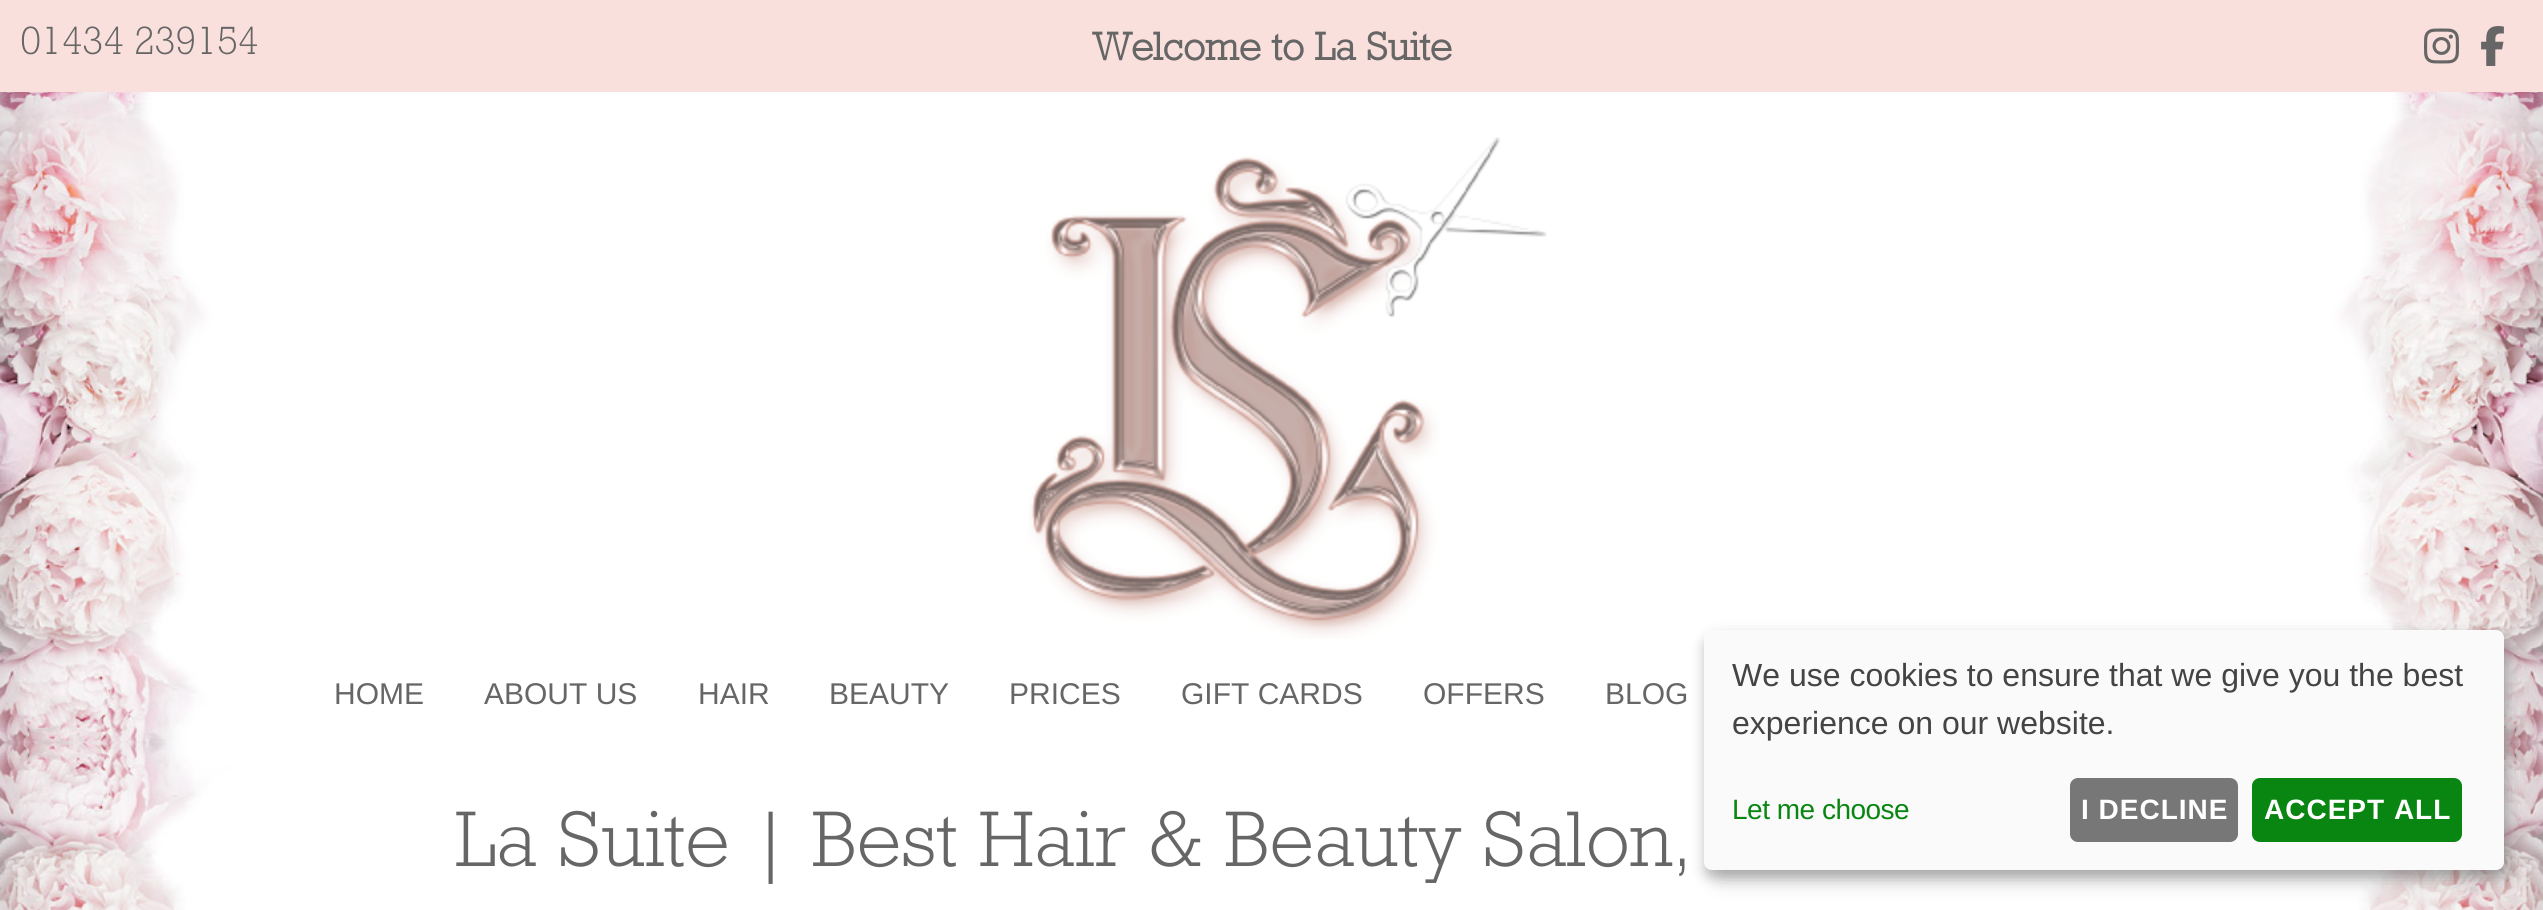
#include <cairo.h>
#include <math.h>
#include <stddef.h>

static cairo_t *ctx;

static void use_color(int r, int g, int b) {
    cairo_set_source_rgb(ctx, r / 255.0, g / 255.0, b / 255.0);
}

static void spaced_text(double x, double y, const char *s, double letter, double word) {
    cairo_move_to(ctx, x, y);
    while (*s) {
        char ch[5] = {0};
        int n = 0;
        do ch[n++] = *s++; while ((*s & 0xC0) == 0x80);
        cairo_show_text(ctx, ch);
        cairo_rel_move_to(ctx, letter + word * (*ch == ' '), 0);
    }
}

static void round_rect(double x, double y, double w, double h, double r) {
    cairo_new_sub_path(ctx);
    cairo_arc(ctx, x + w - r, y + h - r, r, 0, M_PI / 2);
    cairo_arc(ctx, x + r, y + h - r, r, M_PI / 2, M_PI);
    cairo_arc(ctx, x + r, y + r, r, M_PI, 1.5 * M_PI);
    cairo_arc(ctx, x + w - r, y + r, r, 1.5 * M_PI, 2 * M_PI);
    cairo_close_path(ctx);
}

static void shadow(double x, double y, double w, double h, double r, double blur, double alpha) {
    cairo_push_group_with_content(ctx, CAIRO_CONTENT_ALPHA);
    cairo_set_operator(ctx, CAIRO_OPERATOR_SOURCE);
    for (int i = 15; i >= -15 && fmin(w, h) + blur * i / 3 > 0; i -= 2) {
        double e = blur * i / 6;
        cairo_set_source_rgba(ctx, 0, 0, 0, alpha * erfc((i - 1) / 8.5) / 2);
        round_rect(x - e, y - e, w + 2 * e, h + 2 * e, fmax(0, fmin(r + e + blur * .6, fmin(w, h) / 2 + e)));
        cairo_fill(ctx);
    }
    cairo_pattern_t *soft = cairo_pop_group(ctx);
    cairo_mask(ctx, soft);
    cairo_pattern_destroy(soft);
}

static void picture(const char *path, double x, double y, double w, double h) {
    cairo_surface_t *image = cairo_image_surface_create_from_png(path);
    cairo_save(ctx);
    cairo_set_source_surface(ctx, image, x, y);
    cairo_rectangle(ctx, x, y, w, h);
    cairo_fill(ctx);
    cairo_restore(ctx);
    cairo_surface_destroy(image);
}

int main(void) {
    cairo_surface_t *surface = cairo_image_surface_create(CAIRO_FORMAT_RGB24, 2543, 910);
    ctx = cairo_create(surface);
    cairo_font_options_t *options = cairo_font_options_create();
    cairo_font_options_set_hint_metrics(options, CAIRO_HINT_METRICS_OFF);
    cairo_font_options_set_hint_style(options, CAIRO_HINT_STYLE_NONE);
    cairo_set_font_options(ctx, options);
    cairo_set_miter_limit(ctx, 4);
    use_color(255, 255, 255);
    cairo_paint(ctx);
    picture("img1.png", 0, 92, 2543, 818);
    use_color(249, 224, 220);
    cairo_rectangle(ctx, 0, 0, 2543, 92);
    cairo_fill(ctx);
    cairo_select_font_face(ctx, "Rockwell Light", CAIRO_FONT_SLANT_NORMAL, CAIRO_FONT_WEIGHT_NORMAL);
    cairo_set_font_size(ctx, 40);
    use_color(102, 102, 102);
    spaced_text(20, 54, "01434 239154", -0.5, 0);
    cairo_select_font_face(ctx, "Rockwell", CAIRO_FONT_SLANT_NORMAL, CAIRO_FONT_WEIGHT_BOLD);
    cairo_move_to(ctx, 1093, 60);
    cairo_show_text(ctx, "Welcome to La Suite");
    picture("img2.png", 2424, 28, 35, 36);
    picture("img3.png", 2481, 26, 23, 40);
    picture("img4.png", 1028, 137, 519, 502);
    cairo_select_font_face(ctx, "Liberation Sans", CAIRO_FONT_SLANT_NORMAL, CAIRO_FONT_WEIGHT_NORMAL);
    cairo_set_font_size(ctx, 30);
    cairo_move_to(ctx, 334, 704);
    cairo_show_text(ctx, "HOME");
    cairo_move_to(ctx, 484, 704);
    cairo_show_text(ctx, "ABOUT US");
    cairo_move_to(ctx, 698, 704);
    cairo_show_text(ctx, "HAIR");
    cairo_move_to(ctx, 829, 704);
    cairo_show_text(ctx, "BEAUTY");
    cairo_move_to(ctx, 1009, 704);
    cairo_show_text(ctx, "PRICES");
    cairo_move_to(ctx, 1181, 704);
    cairo_show_text(ctx, "GIFT CARDS");
    cairo_move_to(ctx, 1423, 704);
    cairo_show_text(ctx, "OFFERS");
    cairo_move_to(ctx, 1605, 704);
    cairo_show_text(ctx, "BLOG");
    use_color(0, 0, 0);
    shadow(1714, 640, 800, 240, 8, 10, 0.19);
    shadow(1704, 638, 800, 240, 8, 6, 0.2);
    use_color(250, 250, 250);
    round_rect(1704, 630, 800, 240, 8);
    cairo_fill(ctx);
    cairo_set_font_size(ctx, 32);
    use_color(68, 68, 68);
    cairo_move_to(ctx, 1732, 686);
    cairo_show_text(ctx, "We use cookies to ensure that we give you the best");
    cairo_move_to(ctx, 1732, 734);
    cairo_show_text(ctx, "experience on our website.");
    cairo_set_font_size(ctx, 28);
    use_color(8, 134, 17);
    spaced_text(1732, 819, "Let me choose", -0.5, 0);
    use_color(119, 119, 119);
    round_rect(2070, 778, 168, 64, 8);
    cairo_fill(ctx);
    cairo_select_font_face(ctx, "Liberation Sans", CAIRO_FONT_SLANT_NORMAL, CAIRO_FONT_WEIGHT_BOLD);
    use_color(255, 255, 255);
    spaced_text(2081, 819, "I DECLINE", 1, 0);
    use_color(8, 134, 17);
    round_rect(2252, 778, 210, 64, 8);
    cairo_fill(ctx);
    use_color(255, 255, 255);
    spaced_text(2264, 819, "ACCEPT ALL", 1, 0);
    cairo_select_font_face(ctx, "Rockwell Light", CAIRO_FONT_SLANT_NORMAL, CAIRO_FONT_WEIGHT_NORMAL);
    cairo_set_font_size(ctx, 80);
    use_color(102, 102, 102);
    cairo_move_to(ctx, 455, 866);
    cairo_show_text(ctx, "La Suite | Best Hair & Beauty Salon,");
    cairo_surface_write_to_png(surface, "result.png");
    cairo_font_options_destroy(options);
    cairo_destroy(ctx);
    cairo_surface_destroy(surface);
    return 0;
}
